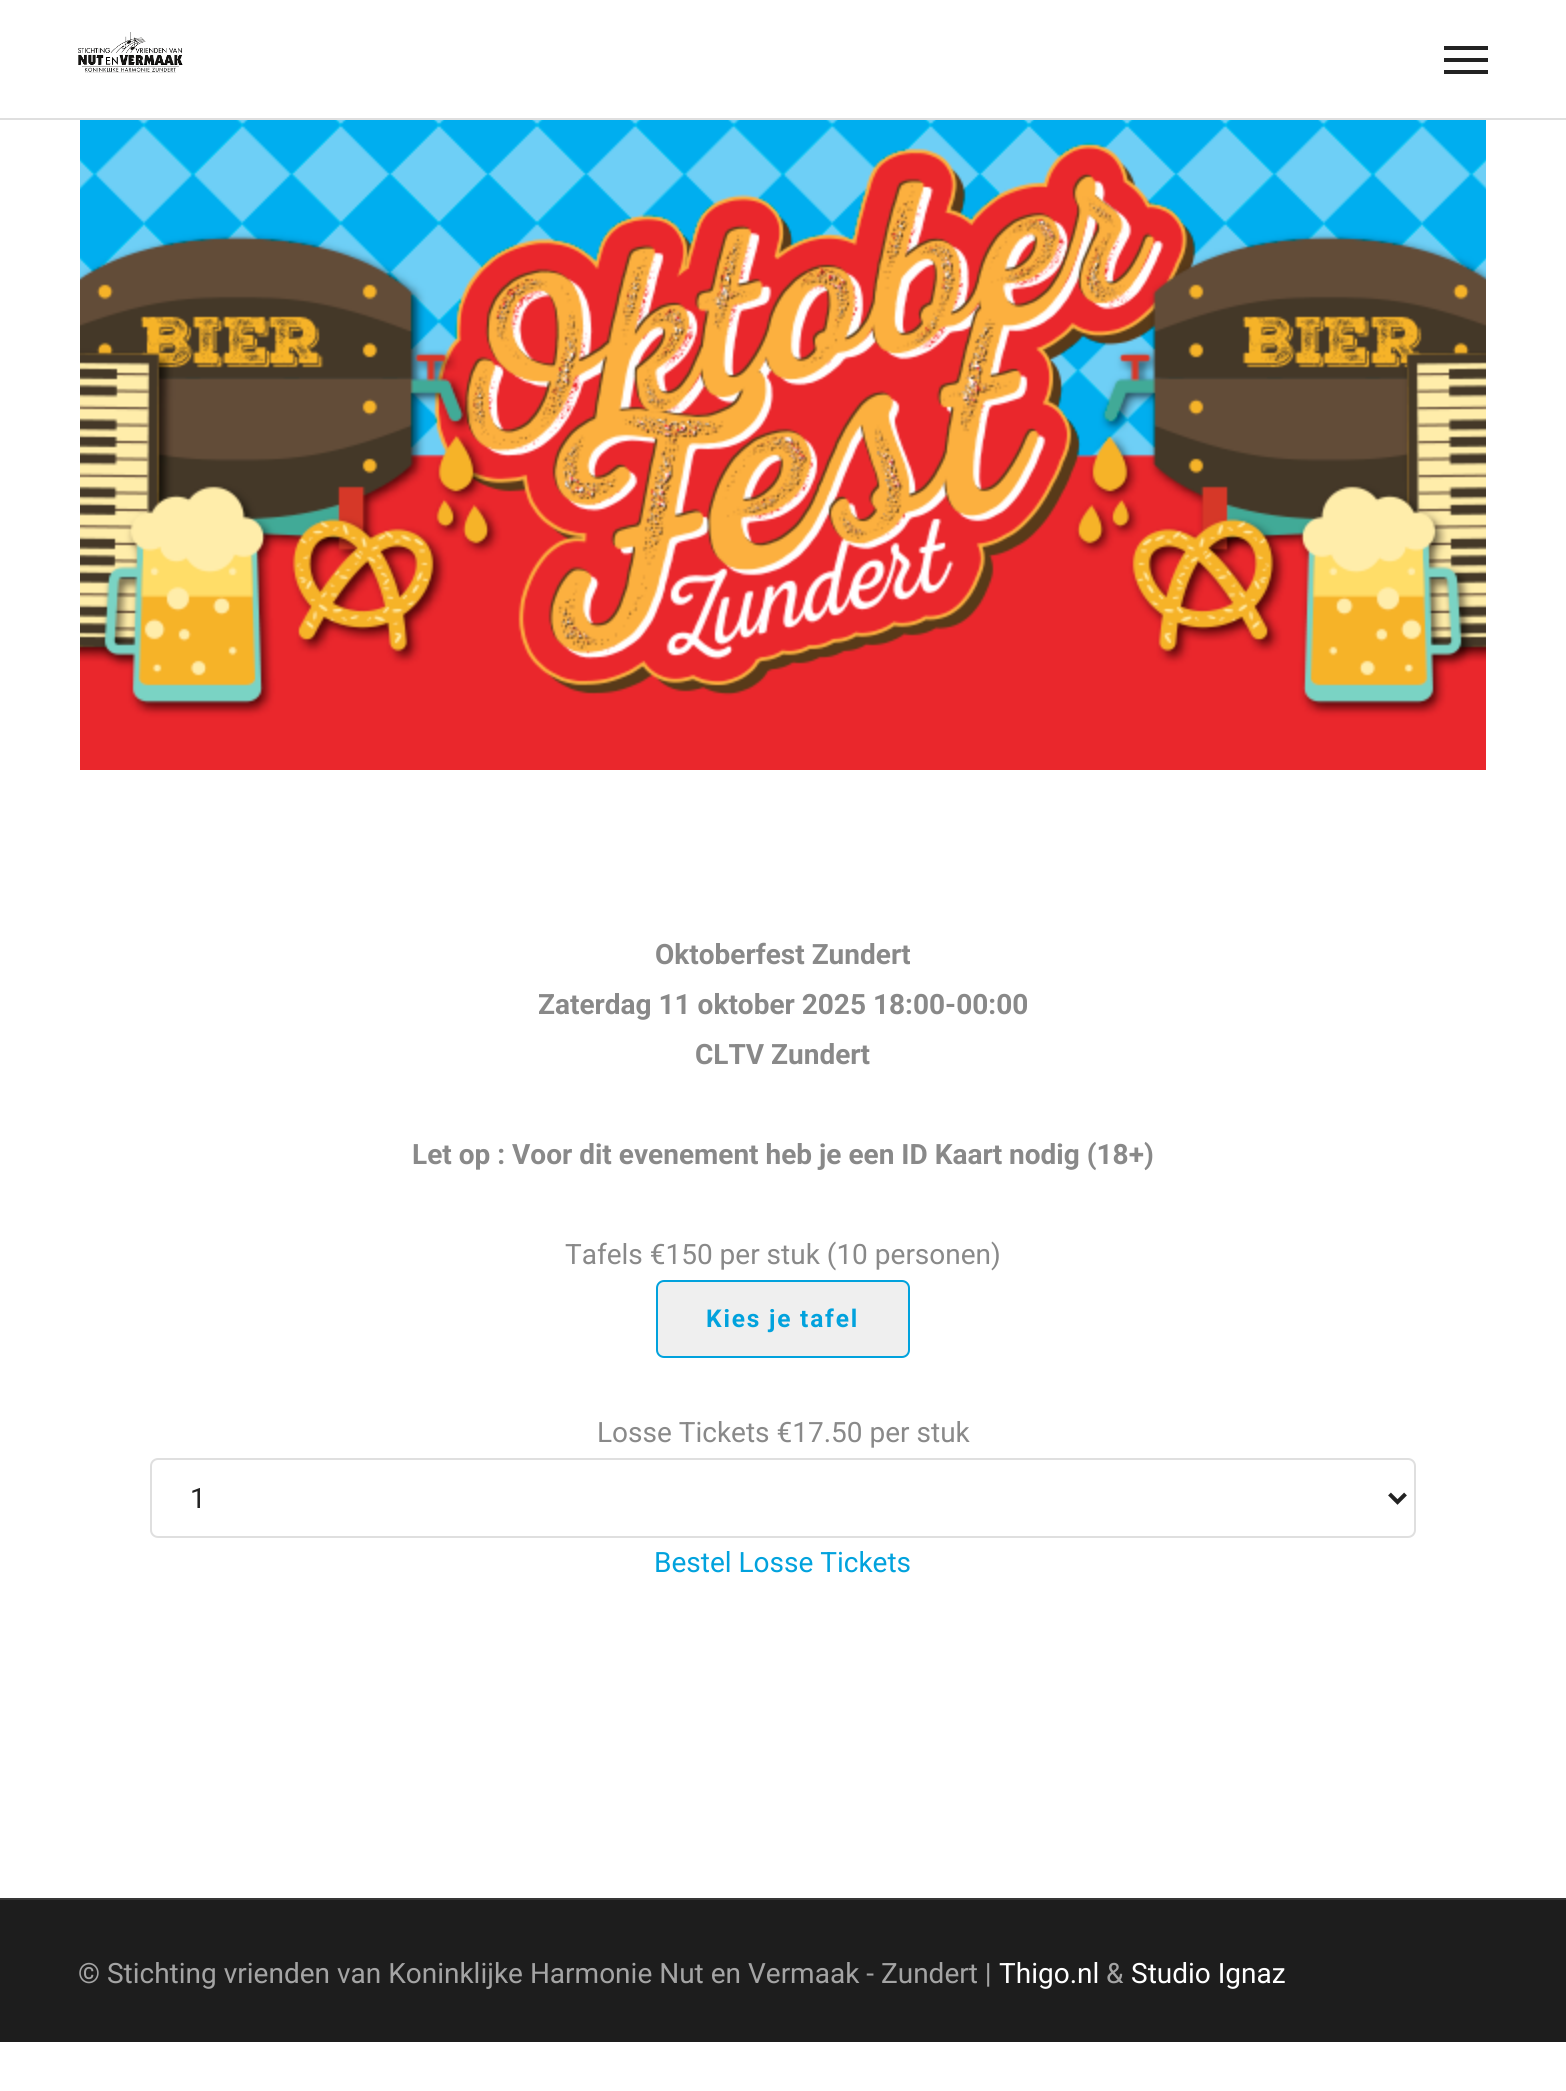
#include <cairo.h>
#include <math.h>
#include <stddef.h>

static cairo_t *ctx;

static void use_color(int r, int g, int b) {
    cairo_set_source_rgb(ctx, r / 255.0, g / 255.0, b / 255.0);
}

static void spaced_text(double x, double y, const char *s, double letter, double word) {
    cairo_move_to(ctx, x, y);
    while (*s) {
        char ch[5] = {0};
        int n = 0;
        do ch[n++] = *s++; while ((*s & 0xC0) == 0x80);
        cairo_show_text(ctx, ch);
        cairo_rel_move_to(ctx, letter + word * (*ch == ' '), 0);
    }
}

static void round_rect(double x, double y, double w, double h, double r) {
    cairo_new_sub_path(ctx);
    cairo_arc(ctx, x + w - r, y + h - r, r, 0, M_PI / 2);
    cairo_arc(ctx, x + r, y + h - r, r, M_PI / 2, M_PI);
    cairo_arc(ctx, x + r, y + r, r, M_PI, 1.5 * M_PI);
    cairo_arc(ctx, x + w - r, y + r, r, 1.5 * M_PI, 2 * M_PI);
    cairo_close_path(ctx);
}

static void picture(const char *path, double x, double y, double w, double h) {
    cairo_surface_t *image = cairo_image_surface_create_from_png(path);
    cairo_save(ctx);
    cairo_set_source_surface(ctx, image, x, y);
    cairo_rectangle(ctx, x, y, w, h);
    cairo_fill(ctx);
    cairo_restore(ctx);
    cairo_surface_destroy(image);
}

int main(void) {
    cairo_surface_t *surface = cairo_image_surface_create(CAIRO_FORMAT_RGB24, 1566, 2091);
    ctx = cairo_create(surface);
    cairo_font_options_t *options = cairo_font_options_create();
    cairo_font_options_set_hint_metrics(options, CAIRO_HINT_METRICS_OFF);
    cairo_font_options_set_hint_style(options, CAIRO_HINT_STYLE_NONE);
    cairo_set_font_options(ctx, options);
    cairo_set_miter_limit(ctx, 4);
    use_color(255, 255, 255);
    cairo_paint(ctx);
    use_color(223, 223, 223);
    cairo_rectangle(ctx, 0, 118, 1566, 2);
    cairo_fill(ctx);
    picture("img1.png", 78, 32, 105, 41);
    use_color(34, 34, 34);
    cairo_rectangle(ctx, 1444, 58, 44, 4);
    cairo_fill(ctx);
    cairo_rectangle(ctx, 1444, 46, 44, 4);
    cairo_fill(ctx);
    cairo_rectangle(ctx, 1444, 70, 44, 4);
    cairo_fill(ctx);
    picture("img2.png", 80, 120, 1406, 650);
    cairo_select_font_face(ctx, "Roboto", CAIRO_FONT_SLANT_NORMAL, CAIRO_FONT_WEIGHT_BOLD);
    cairo_set_font_size(ctx, 28);
    use_color(137, 137, 137);
    cairo_move_to(ctx, 655, 964);
    cairo_show_text(ctx, "Oktoberfest Zundert");
    cairo_move_to(ctx, 538, 1014);
    cairo_show_text(ctx, "Zaterdag 11 oktober 2025 18:00-00:00");
    cairo_move_to(ctx, 695, 1064);
    cairo_show_text(ctx, "CLTV Zundert");
    cairo_move_to(ctx, 412, 1164);
    cairo_show_text(ctx, "Let op : Voor dit evenement heb je een ID Kaart nodig (18+)");
    cairo_select_font_face(ctx, "Roboto", CAIRO_FONT_SLANT_NORMAL, CAIRO_FONT_WEIGHT_NORMAL);
    cairo_move_to(ctx, 565, 1264);
    cairo_show_text(ctx, "Tafels €150 per stuk (10 personen)");
    use_color(239, 239, 239);
    round_rect(657, 1281, 252, 76, 7);
    cairo_fill_preserve(ctx);
    use_color(1, 162, 221);
    cairo_stroke(ctx);
    cairo_select_font_face(ctx, "Roboto", CAIRO_FONT_SLANT_NORMAL, CAIRO_FONT_WEIGHT_BOLD);
    cairo_set_font_size(ctx, 24.5);
    spaced_text(706, 1327, "Kies je tafel", 1.8, 0);
    cairo_select_font_face(ctx, "Roboto", CAIRO_FONT_SLANT_NORMAL, CAIRO_FONT_WEIGHT_NORMAL);
    cairo_set_font_size(ctx, 28);
    use_color(137, 137, 137);
    cairo_move_to(ctx, 597, 1442);
    cairo_show_text(ctx, "Losse Tickets €17.50 per stuk");
    round_rect(151, 1459, 1264, 78, 7);
    use_color(223, 223, 223);
    cairo_stroke(ctx);
    cairo_new_path(ctx);
    cairo_move_to(ctx, 1389.5, 1494);
    cairo_line_to(ctx, 1397.5, 1502);
    cairo_line_to(ctx, 1405.5, 1494);
    use_color(34, 34, 34);
    cairo_set_line_width(ctx, 4);
    cairo_stroke(ctx);
    cairo_move_to(ctx, 190, 1508);
    cairo_show_text(ctx, "1");
    use_color(1, 162, 221);
    cairo_move_to(ctx, 654, 1572);
    cairo_show_text(ctx, "Bestel Losse Tickets");
    use_color(29, 29, 29);
    cairo_rectangle(ctx, 0, 1900, 1566, 142);
    cairo_fill(ctx);
    use_color(54, 54, 54);
    cairo_rectangle(ctx, 0, 1898, 1566, 2);
    cairo_fill(ctx);
    use_color(164, 164, 164);
    cairo_move_to(ctx, 78, 1983);
    cairo_show_text(ctx, "© Stichting vrienden van Koninklijke Harmonie Nut en Vermaak - Zundert |");
    use_color(255, 255, 255);
    cairo_move_to(ctx, 999, 1983);
    cairo_show_text(ctx, "Thigo.nl");
    use_color(164, 164, 164);
    cairo_move_to(ctx, 1106, 1983);
    cairo_show_text(ctx, "&");
    use_color(255, 255, 255);
    cairo_move_to(ctx, 1131, 1983);
    cairo_show_text(ctx, "Studio Ignaz");
    cairo_surface_write_to_png(surface, "result.png");
    cairo_font_options_destroy(options);
    cairo_destroy(ctx);
    cairo_surface_destroy(surface);
    return 0;
}
